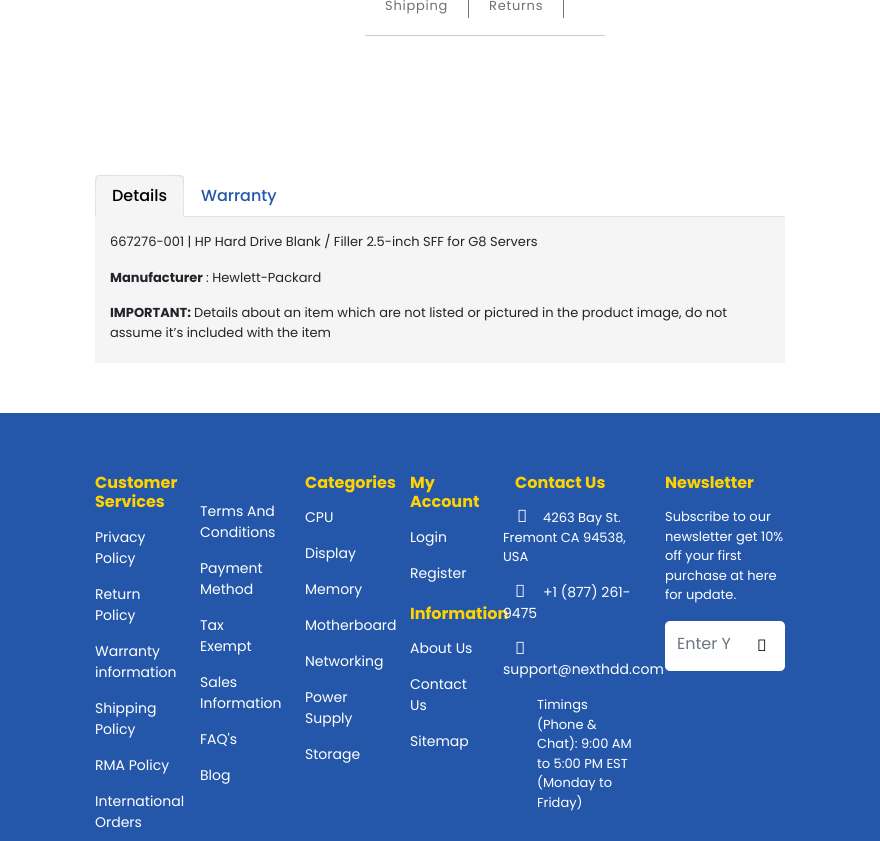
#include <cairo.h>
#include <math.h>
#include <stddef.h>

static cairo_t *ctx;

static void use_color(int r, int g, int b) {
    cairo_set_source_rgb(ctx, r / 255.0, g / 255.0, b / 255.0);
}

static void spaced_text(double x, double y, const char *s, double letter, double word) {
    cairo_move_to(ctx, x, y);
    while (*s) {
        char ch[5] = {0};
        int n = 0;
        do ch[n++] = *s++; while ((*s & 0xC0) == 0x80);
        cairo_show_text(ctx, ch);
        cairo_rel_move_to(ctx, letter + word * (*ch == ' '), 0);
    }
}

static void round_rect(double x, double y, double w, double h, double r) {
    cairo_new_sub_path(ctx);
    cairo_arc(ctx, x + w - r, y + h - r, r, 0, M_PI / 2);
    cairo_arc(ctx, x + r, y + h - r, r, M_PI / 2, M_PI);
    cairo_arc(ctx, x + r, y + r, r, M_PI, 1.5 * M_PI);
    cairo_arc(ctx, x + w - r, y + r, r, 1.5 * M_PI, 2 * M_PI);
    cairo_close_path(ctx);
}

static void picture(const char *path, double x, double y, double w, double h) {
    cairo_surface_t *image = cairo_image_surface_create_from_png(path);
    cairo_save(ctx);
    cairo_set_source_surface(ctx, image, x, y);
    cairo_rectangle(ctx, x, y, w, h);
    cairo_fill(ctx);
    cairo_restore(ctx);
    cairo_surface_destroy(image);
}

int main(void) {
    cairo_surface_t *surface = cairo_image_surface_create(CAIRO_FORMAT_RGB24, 880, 841);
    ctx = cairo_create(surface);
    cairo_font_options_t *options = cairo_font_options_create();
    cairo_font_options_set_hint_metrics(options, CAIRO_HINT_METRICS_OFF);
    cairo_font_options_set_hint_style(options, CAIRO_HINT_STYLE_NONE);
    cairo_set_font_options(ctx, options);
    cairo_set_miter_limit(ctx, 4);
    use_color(255, 255, 255);
    cairo_paint(ctx);
    use_color(203, 203, 203);
    cairo_rectangle(ctx, 365, 35, 240, 1);
    cairo_fill(ctx);
    cairo_select_font_face(ctx, "Poppins", CAIRO_FONT_SLANT_NORMAL, CAIRO_FONT_WEIGHT_NORMAL);
    cairo_set_font_size(ctx, 13);
    use_color(112, 112, 112);
    spaced_text(385, 10, "Shipping", 0.75, 0);
    cairo_rectangle(ctx, 563, 0, 1, 18);
    cairo_fill(ctx);
    cairo_rectangle(ctx, 468, 0, 1, 18);
    cairo_fill(ctx);
    spaced_text(489, 10, "Returns", 0.75, 0);
    use_color(222, 226, 230);
    cairo_rectangle(ctx, 184, 216, 601, 1);
    cairo_fill(ctx);
    use_color(245, 245, 245);
    cairo_new_path(ctx);
    cairo_move_to(ctx, 99, 175);
    cairo_line_to(ctx, 180, 175);
    cairo_curve_to(ctx, 182, 175, 184, 177, 184, 179);
    cairo_line_to(ctx, 184, 217);
    cairo_line_to(ctx, 95, 217);
    cairo_line_to(ctx, 95, 179);
    cairo_curve_to(ctx, 95, 177, 97, 175, 99, 175);
    cairo_close_path(ctx);
    cairo_fill(ctx);
    use_color(222, 226, 230);
    cairo_new_path(ctx);
    cairo_move_to(ctx, 99, 175);
    cairo_line_to(ctx, 96, 176);
    cairo_line_to(ctx, 97, 177);
    cairo_line_to(ctx, 99, 176);
    cairo_line_to(ctx, 112, 176);
    cairo_curve_to(ctx, 120, 176, 180, 175, 182, 177);
    cairo_line_to(ctx, 183, 176);
    cairo_line_to(ctx, 180, 175);
    cairo_close_path(ctx);
    cairo_fill(ctx);
    cairo_new_path(ctx);
    cairo_move_to(ctx, 184, 217);
    cairo_line_to(ctx, 184, 179);
    cairo_curve_to(ctx, 184, 178, 184, 177, 183, 176);
    cairo_line_to(ctx, 182, 177);
    cairo_curve_to(ctx, 184, 179, 183, 211, 183, 216);
    cairo_close_path(ctx);
    cairo_fill(ctx);
    use_color(245, 245, 245);
    cairo_new_path(ctx);
    cairo_move_to(ctx, 184, 217);
    cairo_line_to(ctx, 183, 216);
    cairo_line_to(ctx, 96, 216);
    cairo_line_to(ctx, 95, 217);
    cairo_close_path(ctx);
    cairo_fill(ctx);
    use_color(222, 226, 230);
    cairo_new_path(ctx);
    cairo_move_to(ctx, 95, 217);
    cairo_line_to(ctx, 96, 216);
    cairo_curve_to(ctx, 96, 211, 95, 179, 97, 177);
    cairo_line_to(ctx, 96, 176);
    cairo_line_to(ctx, 95, 179);
    cairo_close_path(ctx);
    cairo_fill(ctx);
    cairo_select_font_face(ctx, "Poppins Medium", CAIRO_FONT_SLANT_NORMAL, CAIRO_FONT_WEIGHT_NORMAL);
    cairo_set_font_size(ctx, 16);
    use_color(0, 0, 0);
    cairo_move_to(ctx, 112, 201);
    cairo_show_text(ctx, "Details");
    use_color(36, 87, 170);
    cairo_move_to(ctx, 201, 201);
    cairo_show_text(ctx, "Warranty");
    use_color(245, 245, 245);
    cairo_rectangle(ctx, 95, 217, 690, 146);
    cairo_fill(ctx);
    cairo_select_font_face(ctx, "Poppins", CAIRO_FONT_SLANT_NORMAL, CAIRO_FONT_WEIGHT_NORMAL);
    cairo_set_font_size(ctx, 13);
    use_color(33, 37, 41);
    cairo_move_to(ctx, 110, 246);
    cairo_show_text(ctx, "667276-001 | HP Hard Drive Blank / Filler 2.5-inch SFF for G8 Servers");
    cairo_select_font_face(ctx, "Poppins", CAIRO_FONT_SLANT_NORMAL, CAIRO_FONT_WEIGHT_BOLD);
    cairo_move_to(ctx, 110, 282);
    cairo_show_text(ctx, "Manufacturer");
    cairo_select_font_face(ctx, "Poppins", CAIRO_FONT_SLANT_NORMAL, CAIRO_FONT_WEIGHT_NORMAL);
    cairo_move_to(ctx, 206, 282);
    cairo_show_text(ctx, ": Hewlett-Packard");
    cairo_select_font_face(ctx, "Poppins", CAIRO_FONT_SLANT_NORMAL, CAIRO_FONT_WEIGHT_BOLD);
    cairo_move_to(ctx, 110, 317);
    cairo_show_text(ctx, "IMPORTANT:");
    cairo_select_font_face(ctx, "Poppins", CAIRO_FONT_SLANT_NORMAL, CAIRO_FONT_WEIGHT_NORMAL);
    cairo_move_to(ctx, 194, 317);
    cairo_show_text(ctx, "Details about an item which are not listed or pictured in the product image, do not");
    cairo_move_to(ctx, 110, 337);
    cairo_show_text(ctx, "assume it’s included with the item");
    use_color(36, 87, 170);
    cairo_rectangle(ctx, 0, 413, 880, 428);
    cairo_fill(ctx);
    cairo_select_font_face(ctx, "Poppins", CAIRO_FONT_SLANT_NORMAL, CAIRO_FONT_WEIGHT_BOLD);
    cairo_set_font_size(ctx, 16);
    use_color(255, 210, 0);
    cairo_move_to(ctx, 95, 488);
    cairo_show_text(ctx, "Customer");
    cairo_move_to(ctx, 95, 507);
    cairo_show_text(ctx, "Services");
    cairo_select_font_face(ctx, "Poppins", CAIRO_FONT_SLANT_NORMAL, CAIRO_FONT_WEIGHT_NORMAL);
    cairo_set_font_size(ctx, 14);
    use_color(255, 255, 255);
    cairo_move_to(ctx, 95, 542);
    cairo_show_text(ctx, "Privacy");
    cairo_move_to(ctx, 95, 563);
    cairo_show_text(ctx, "Policy");
    cairo_move_to(ctx, 95, 599);
    cairo_show_text(ctx, "Return");
    cairo_move_to(ctx, 95, 620);
    cairo_show_text(ctx, "Policy");
    cairo_move_to(ctx, 95, 656);
    cairo_show_text(ctx, "Warranty");
    cairo_move_to(ctx, 95, 677);
    cairo_show_text(ctx, "information");
    cairo_move_to(ctx, 95, 713);
    cairo_show_text(ctx, "Shipping");
    cairo_move_to(ctx, 95, 734);
    cairo_show_text(ctx, "Policy");
    cairo_move_to(ctx, 95, 770);
    cairo_show_text(ctx, "RMA Policy");
    cairo_move_to(ctx, 95, 806);
    cairo_show_text(ctx, "International");
    cairo_move_to(ctx, 95, 827);
    cairo_show_text(ctx, "Orders");
    cairo_move_to(ctx, 200, 516);
    cairo_show_text(ctx, "Terms And");
    cairo_move_to(ctx, 200, 537);
    cairo_show_text(ctx, "Conditions");
    cairo_move_to(ctx, 200, 573);
    cairo_show_text(ctx, "Payment");
    cairo_move_to(ctx, 200, 594);
    cairo_show_text(ctx, "Method");
    cairo_move_to(ctx, 200, 630);
    cairo_show_text(ctx, "Tax");
    cairo_move_to(ctx, 200, 651);
    cairo_show_text(ctx, "Exempt");
    cairo_move_to(ctx, 200, 687);
    cairo_show_text(ctx, "Sales");
    cairo_move_to(ctx, 200, 708);
    cairo_show_text(ctx, "Information");
    cairo_move_to(ctx, 200, 744);
    cairo_show_text(ctx, "FAQ's");
    cairo_move_to(ctx, 200, 780);
    cairo_show_text(ctx, "Blog");
    cairo_select_font_face(ctx, "Poppins", CAIRO_FONT_SLANT_NORMAL, CAIRO_FONT_WEIGHT_BOLD);
    cairo_set_font_size(ctx, 16);
    use_color(255, 210, 0);
    cairo_move_to(ctx, 305, 488);
    cairo_show_text(ctx, "Categories");
    cairo_select_font_face(ctx, "Poppins", CAIRO_FONT_SLANT_NORMAL, CAIRO_FONT_WEIGHT_NORMAL);
    cairo_set_font_size(ctx, 14);
    use_color(255, 255, 255);
    cairo_move_to(ctx, 305, 522);
    cairo_show_text(ctx, "CPU");
    cairo_move_to(ctx, 305, 558);
    cairo_show_text(ctx, "Display");
    cairo_move_to(ctx, 305, 594);
    cairo_show_text(ctx, "Memory");
    cairo_move_to(ctx, 305, 630);
    cairo_show_text(ctx, "Motherboard");
    cairo_move_to(ctx, 305, 666);
    cairo_show_text(ctx, "Networking");
    cairo_move_to(ctx, 305, 702);
    cairo_show_text(ctx, "Power");
    cairo_move_to(ctx, 305, 723);
    cairo_show_text(ctx, "Supply");
    cairo_move_to(ctx, 305, 759);
    cairo_show_text(ctx, "Storage");
    cairo_select_font_face(ctx, "Poppins", CAIRO_FONT_SLANT_NORMAL, CAIRO_FONT_WEIGHT_BOLD);
    cairo_set_font_size(ctx, 16);
    use_color(255, 210, 0);
    cairo_move_to(ctx, 410, 488);
    cairo_show_text(ctx, "My");
    cairo_move_to(ctx, 410, 507);
    cairo_show_text(ctx, "Account");
    cairo_select_font_face(ctx, "Poppins", CAIRO_FONT_SLANT_NORMAL, CAIRO_FONT_WEIGHT_NORMAL);
    cairo_set_font_size(ctx, 14);
    use_color(255, 255, 255);
    cairo_move_to(ctx, 410, 542);
    cairo_show_text(ctx, "Login");
    cairo_move_to(ctx, 410, 578);
    cairo_show_text(ctx, "Register");
    cairo_select_font_face(ctx, "Poppins", CAIRO_FONT_SLANT_NORMAL, CAIRO_FONT_WEIGHT_BOLD);
    cairo_set_font_size(ctx, 16);
    use_color(255, 210, 0);
    cairo_move_to(ctx, 410, 619);
    cairo_show_text(ctx, "Information");
    cairo_select_font_face(ctx, "Poppins", CAIRO_FONT_SLANT_NORMAL, CAIRO_FONT_WEIGHT_NORMAL);
    cairo_set_font_size(ctx, 14);
    use_color(255, 255, 255);
    cairo_move_to(ctx, 410, 653);
    cairo_show_text(ctx, "About Us");
    cairo_move_to(ctx, 410, 689);
    cairo_show_text(ctx, "Contact");
    cairo_move_to(ctx, 410, 710);
    cairo_show_text(ctx, "Us");
    cairo_move_to(ctx, 410, 746);
    cairo_show_text(ctx, "Sitemap");
    cairo_select_font_face(ctx, "Poppins", CAIRO_FONT_SLANT_NORMAL, CAIRO_FONT_WEIGHT_BOLD);
    cairo_set_font_size(ctx, 16);
    use_color(255, 210, 0);
    cairo_move_to(ctx, 515, 488);
    cairo_show_text(ctx, "Contact Us");
    picture("img1.png", 518, 509, 8, 13);
    cairo_select_font_face(ctx, "Poppins", CAIRO_FONT_SLANT_NORMAL, CAIRO_FONT_WEIGHT_NORMAL);
    cairo_set_font_size(ctx, 13);
    use_color(255, 255, 255);
    cairo_move_to(ctx, 543, 522);
    cairo_show_text(ctx, "4263 Bay St.");
    cairo_move_to(ctx, 503, 542);
    cairo_show_text(ctx, "Fremont CA 94538,");
    cairo_move_to(ctx, 503, 561);
    cairo_show_text(ctx, "USA");
    picture("img1.png", 516, 584, 8, 13);
    cairo_set_font_size(ctx, 14);
    cairo_move_to(ctx, 543, 597);
    cairo_show_text(ctx, "+1 (877) 261-");
    cairo_move_to(ctx, 503, 618);
    cairo_show_text(ctx, "9475");
    picture("img1.png", 516, 641, 8, 13);
    cairo_move_to(ctx, 503, 674);
    cairo_show_text(ctx, "support@nexthdd.com");
    cairo_set_font_size(ctx, 13);
    cairo_move_to(ctx, 537, 709);
    cairo_show_text(ctx, "Timings");
    cairo_move_to(ctx, 537, 729);
    cairo_show_text(ctx, "(Phone &");
    cairo_move_to(ctx, 537, 748);
    cairo_show_text(ctx, "Chat): 9:00 AM");
    cairo_move_to(ctx, 537, 768);
    cairo_show_text(ctx, "to 5:00 PM EST");
    cairo_move_to(ctx, 537, 787);
    cairo_show_text(ctx, "(Monday to");
    cairo_move_to(ctx, 537, 807);
    cairo_show_text(ctx, "Friday)");
    cairo_select_font_face(ctx, "Poppins", CAIRO_FONT_SLANT_NORMAL, CAIRO_FONT_WEIGHT_BOLD);
    cairo_set_font_size(ctx, 16);
    use_color(255, 210, 0);
    cairo_move_to(ctx, 665, 488);
    cairo_show_text(ctx, "Newsletter");
    cairo_select_font_face(ctx, "Poppins", CAIRO_FONT_SLANT_NORMAL, CAIRO_FONT_WEIGHT_NORMAL);
    cairo_set_font_size(ctx, 13);
    use_color(255, 255, 255);
    cairo_move_to(ctx, 665, 521);
    cairo_show_text(ctx, "Subscribe to our");
    cairo_move_to(ctx, 665, 541);
    cairo_show_text(ctx, "newsletter get 10%");
    cairo_move_to(ctx, 665, 560);
    cairo_show_text(ctx, "off your first");
    cairo_move_to(ctx, 665, 580);
    cairo_show_text(ctx, "purchase at here");
    cairo_move_to(ctx, 665, 599);
    cairo_show_text(ctx, "for update.");
    round_rect(665, 621, 120, 50, 5);
    cairo_fill(ctx);
    cairo_set_font_size(ctx, 16);
    use_color(108, 117, 125);
    cairo_move_to(ctx, 677, 649);
    cairo_show_text(ctx, "Enter Y");
    picture("img2.png", 758, 639, 8, 12);
    cairo_surface_write_to_png(surface, "result.png");
    cairo_font_options_destroy(options);
    cairo_destroy(ctx);
    cairo_surface_destroy(surface);
    return 0;
}
